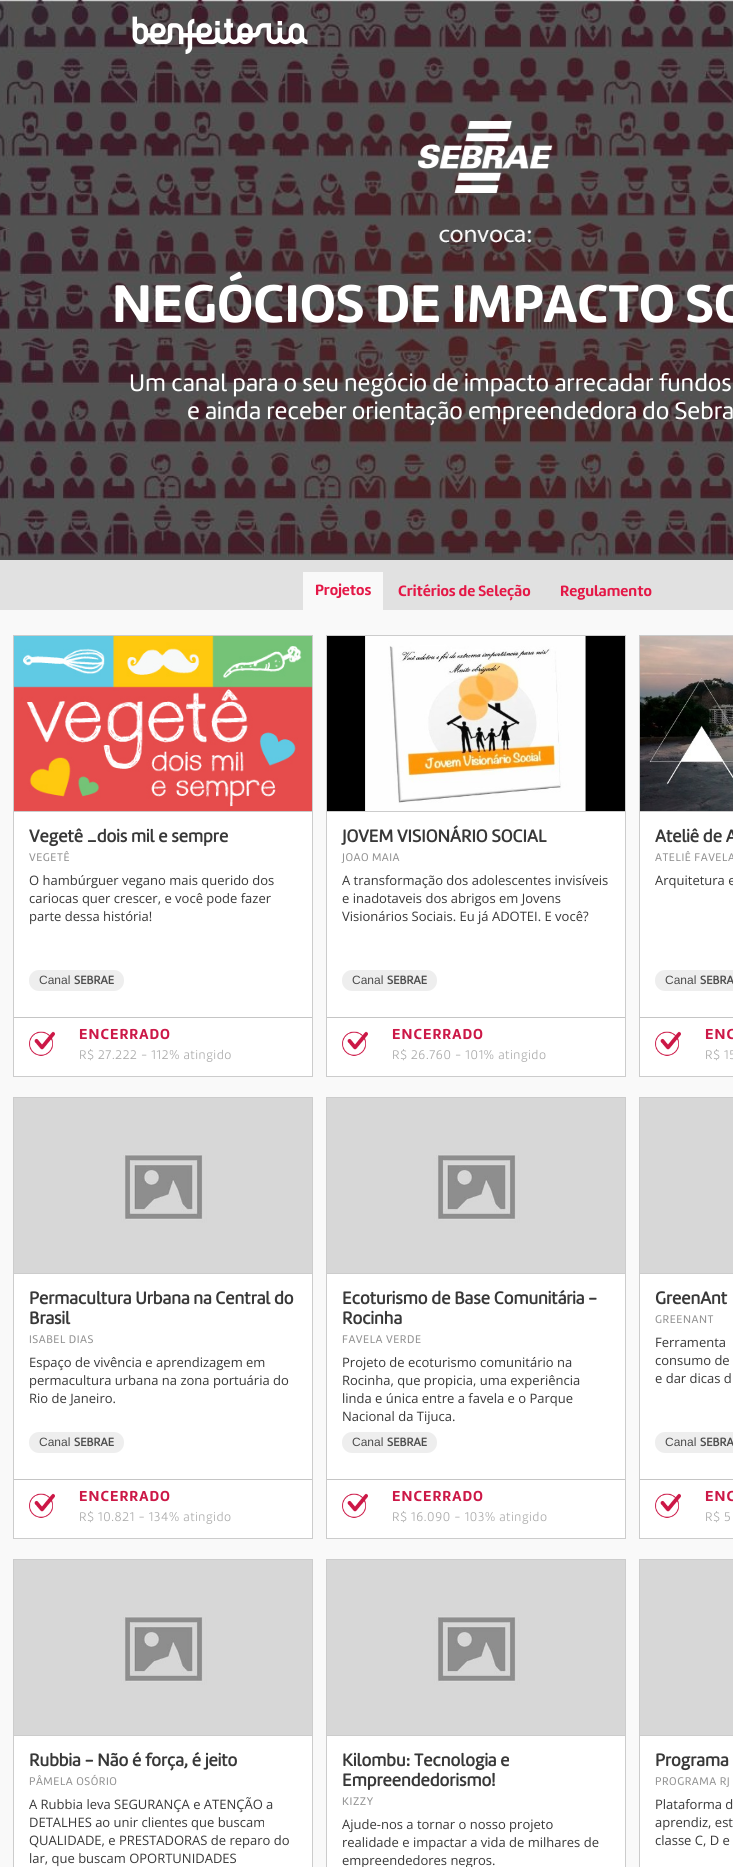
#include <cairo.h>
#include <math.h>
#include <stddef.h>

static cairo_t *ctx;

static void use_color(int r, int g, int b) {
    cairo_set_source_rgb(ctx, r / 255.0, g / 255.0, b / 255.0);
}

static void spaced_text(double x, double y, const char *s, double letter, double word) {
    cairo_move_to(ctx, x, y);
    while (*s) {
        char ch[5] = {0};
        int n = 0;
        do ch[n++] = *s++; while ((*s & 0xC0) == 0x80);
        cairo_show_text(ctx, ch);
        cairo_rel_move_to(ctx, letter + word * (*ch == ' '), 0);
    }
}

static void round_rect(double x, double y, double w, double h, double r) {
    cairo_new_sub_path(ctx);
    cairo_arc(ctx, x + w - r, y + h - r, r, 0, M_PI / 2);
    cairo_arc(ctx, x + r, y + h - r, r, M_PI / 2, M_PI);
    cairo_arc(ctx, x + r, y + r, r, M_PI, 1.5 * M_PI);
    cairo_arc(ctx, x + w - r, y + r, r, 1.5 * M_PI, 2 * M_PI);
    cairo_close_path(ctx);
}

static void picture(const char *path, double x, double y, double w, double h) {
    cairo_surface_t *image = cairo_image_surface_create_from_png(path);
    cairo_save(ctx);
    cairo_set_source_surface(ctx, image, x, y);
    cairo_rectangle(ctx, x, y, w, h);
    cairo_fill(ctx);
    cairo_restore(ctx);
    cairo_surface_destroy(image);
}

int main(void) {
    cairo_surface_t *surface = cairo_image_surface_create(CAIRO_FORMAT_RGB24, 733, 1867);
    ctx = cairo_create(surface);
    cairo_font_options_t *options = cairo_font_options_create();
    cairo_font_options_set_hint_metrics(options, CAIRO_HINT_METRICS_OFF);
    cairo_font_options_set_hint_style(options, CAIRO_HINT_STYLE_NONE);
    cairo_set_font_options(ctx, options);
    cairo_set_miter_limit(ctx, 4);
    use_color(249, 249, 249);
    cairo_paint(ctx);
    picture("img2.png", 0, 0, 733, 560);
    picture("img1.png", 132, 16, 176, 39);
    picture("img3.png", 418, 121, 135, 123);
    cairo_select_font_face(ctx, "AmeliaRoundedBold", CAIRO_FONT_SLANT_NORMAL, CAIRO_FONT_WEIGHT_BOLD);
    cairo_set_font_size(ctx, 55);
    use_color(255, 255, 255);
    cairo_move_to(ctx, 112, 322);
    cairo_show_text(ctx, "NEGÓCIOS DE IMPACTO SO");
    cairo_select_font_face(ctx, "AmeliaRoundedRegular", CAIRO_FONT_SLANT_NORMAL, CAIRO_FONT_WEIGHT_NORMAL);
    cairo_set_font_size(ctx, 25);
    cairo_move_to(ctx, 129, 391);
    cairo_show_text(ctx, "Um canal para o seu negócio de impacto arrecadar fundos");
    cairo_move_to(ctx, 187, 419);
    cairo_show_text(ctx, "e ainda receber orientação empreendedora do Sebra");
    use_color(225, 225, 225);
    cairo_rectangle(ctx, 0, 560, 733, 50);
    cairo_fill(ctx);
    use_color(249, 249, 249);
    cairo_rectangle(ctx, 303, 572, 80, 38);
    cairo_fill(ctx);
    cairo_select_font_face(ctx, "AmeliaRoundedBold", CAIRO_FONT_SLANT_NORMAL, CAIRO_FONT_WEIGHT_BOLD);
    cairo_set_font_size(ctx, 15.5);
    use_color(228, 24, 71);
    cairo_move_to(ctx, 315, 595);
    cairo_show_text(ctx, "Projetos");
    cairo_move_to(ctx, 398, 596);
    cairo_show_text(ctx, "Critérios de Seleção");
    cairo_move_to(ctx, 560, 596);
    cairo_show_text(ctx, "Regulamento");
    use_color(255, 255, 255);
    cairo_rectangle(ctx, 14, 812, 298, 264);
    cairo_fill(ctx);
    cairo_rectangle(ctx, 13.5, 635.5, 299, 441);
    use_color(204, 204, 204);
    cairo_set_line_width(ctx, 1);
    cairo_stroke(ctx);
    picture("img4.png", 14, 636, 298, 175);
    cairo_rectangle(ctx, 14, 811, 298, 1);
    cairo_fill(ctx);
    cairo_select_font_face(ctx, "AmeliaRoundedRegular", CAIRO_FONT_SLANT_NORMAL, CAIRO_FONT_WEIGHT_BOLD);
    cairo_set_font_size(ctx, 18);
    use_color(56, 56, 56);
    cairo_move_to(ctx, 29, 842);
    cairo_show_text(ctx, "Vegetê _dois mil e sempre");
    cairo_select_font_face(ctx, "AmeliaRoundedRegular", CAIRO_FONT_SLANT_NORMAL, CAIRO_FONT_WEIGHT_NORMAL);
    cairo_set_font_size(ctx, 11.5);
    use_color(146, 146, 146);
    spaced_text(29, 861, "VEGETÊ", 0.5, 0);
    cairo_select_font_face(ctx, "Open Sans", CAIRO_FONT_SLANT_NORMAL, CAIRO_FONT_WEIGHT_NORMAL);
    cairo_set_font_size(ctx, 13);
    use_color(56, 56, 56);
    cairo_move_to(ctx, 29, 885);
    cairo_show_text(ctx, "O hambúrguer vegano mais querido dos");
    cairo_move_to(ctx, 29, 903);
    cairo_show_text(ctx, "cariocas quer crescer, e você pode fazer");
    cairo_move_to(ctx, 29, 921);
    cairo_show_text(ctx, "parte dessa história!");
    use_color(238, 238, 238);
    round_rect(29, 970, 95, 21, 10);
    cairo_fill(ctx);
    cairo_select_font_face(ctx, "Liberation Sans", CAIRO_FONT_SLANT_NORMAL, CAIRO_FONT_WEIGHT_NORMAL);
    cairo_set_font_size(ctx, 12);
    use_color(77, 77, 77);
    cairo_move_to(ctx, 39, 984);
    cairo_show_text(ctx, "Canal");
    cairo_select_font_face(ctx, "AmeliaRoundedRegular", CAIRO_FONT_SLANT_NORMAL, CAIRO_FONT_WEIGHT_BOLD);
    cairo_move_to(ctx, 74, 984);
    cairo_show_text(ctx, "SEBRAE");
    use_color(197, 197, 197);
    cairo_rectangle(ctx, 14, 1017, 298, 1);
    cairo_fill(ctx);
    picture("img5.png", 29, 1031, 26, 25);
    cairo_select_font_face(ctx, "AmeliaRoundedBold", CAIRO_FONT_SLANT_NORMAL, CAIRO_FONT_WEIGHT_BOLD);
    cairo_set_font_size(ctx, 15);
    use_color(204, 24, 71);
    spaced_text(79, 1039, "ENCERRADO", 1, 0);
    cairo_select_font_face(ctx, "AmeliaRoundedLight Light", CAIRO_FONT_SLANT_NORMAL, CAIRO_FONT_WEIGHT_NORMAL);
    cairo_set_font_size(ctx, 13);
    use_color(171, 171, 171);
    spaced_text(79, 1059, "R$ 27.222 - 112% atingido", 0.65, 0);
    use_color(255, 255, 255);
    cairo_rectangle(ctx, 327, 812, 298, 264);
    cairo_fill(ctx);
    cairo_rectangle(ctx, 326.5, 635.5, 299, 441);
    use_color(204, 204, 204);
    cairo_stroke(ctx);
    picture("img6.png", 327, 636, 298, 175);
    cairo_rectangle(ctx, 327, 811, 298, 1);
    cairo_fill(ctx);
    cairo_select_font_face(ctx, "AmeliaRoundedRegular", CAIRO_FONT_SLANT_NORMAL, CAIRO_FONT_WEIGHT_BOLD);
    cairo_set_font_size(ctx, 18);
    use_color(56, 56, 56);
    cairo_move_to(ctx, 342, 842);
    cairo_show_text(ctx, "JOVEM VISIONÁRIO SOCIAL");
    cairo_select_font_face(ctx, "AmeliaRoundedRegular", CAIRO_FONT_SLANT_NORMAL, CAIRO_FONT_WEIGHT_NORMAL);
    cairo_set_font_size(ctx, 11.5);
    use_color(146, 146, 146);
    spaced_text(342, 861, "JOAO MAIA", 0.5, 0);
    cairo_select_font_face(ctx, "Open Sans", CAIRO_FONT_SLANT_NORMAL, CAIRO_FONT_WEIGHT_NORMAL);
    cairo_set_font_size(ctx, 13);
    use_color(56, 56, 56);
    cairo_move_to(ctx, 342, 885);
    cairo_show_text(ctx, "A transformação dos adolescentes invisíveis");
    cairo_move_to(ctx, 342, 903);
    cairo_show_text(ctx, "e inadotaveis dos abrigos em Jovens");
    cairo_move_to(ctx, 342, 921);
    cairo_show_text(ctx, "Visionários Sociais. Eu já ADOTEI. E você?");
    use_color(238, 238, 238);
    round_rect(342, 970, 95, 21, 10);
    cairo_fill(ctx);
    cairo_select_font_face(ctx, "Liberation Sans", CAIRO_FONT_SLANT_NORMAL, CAIRO_FONT_WEIGHT_NORMAL);
    cairo_set_font_size(ctx, 12);
    use_color(77, 77, 77);
    cairo_move_to(ctx, 352, 984);
    cairo_show_text(ctx, "Canal");
    cairo_select_font_face(ctx, "AmeliaRoundedRegular", CAIRO_FONT_SLANT_NORMAL, CAIRO_FONT_WEIGHT_BOLD);
    cairo_move_to(ctx, 387, 984);
    cairo_show_text(ctx, "SEBRAE");
    use_color(197, 197, 197);
    cairo_rectangle(ctx, 327, 1017, 298, 1);
    cairo_fill(ctx);
    picture("img5.png", 342, 1031, 26, 25);
    cairo_select_font_face(ctx, "AmeliaRoundedBold", CAIRO_FONT_SLANT_NORMAL, CAIRO_FONT_WEIGHT_BOLD);
    cairo_set_font_size(ctx, 15);
    use_color(204, 24, 71);
    spaced_text(392, 1039, "ENCERRADO", 1, 0);
    cairo_select_font_face(ctx, "AmeliaRoundedLight Light", CAIRO_FONT_SLANT_NORMAL, CAIRO_FONT_WEIGHT_NORMAL);
    cairo_set_font_size(ctx, 13);
    use_color(171, 171, 171);
    spaced_text(392, 1059, "R$ 26.760 - 101% atingido", 0.65, 0);
    use_color(255, 255, 255);
    cairo_rectangle(ctx, 640, 812, 93, 264);
    cairo_fill(ctx);
    cairo_rectangle(ctx, 639.5, 635.5, 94, 441);
    use_color(204, 204, 204);
    cairo_stroke(ctx);
    picture("img7.png", 640, 636, 93, 175);
    cairo_rectangle(ctx, 640, 811, 93, 1);
    cairo_fill(ctx);
    cairo_select_font_face(ctx, "AmeliaRoundedRegular", CAIRO_FONT_SLANT_NORMAL, CAIRO_FONT_WEIGHT_BOLD);
    cairo_set_font_size(ctx, 18);
    use_color(56, 56, 56);
    cairo_move_to(ctx, 655, 842);
    cairo_show_text(ctx, "Ateliê de A");
    cairo_select_font_face(ctx, "AmeliaRoundedRegular", CAIRO_FONT_SLANT_NORMAL, CAIRO_FONT_WEIGHT_NORMAL);
    cairo_set_font_size(ctx, 11.5);
    use_color(146, 146, 146);
    spaced_text(655, 861, "ATELIÊ FAVELA", 0.5, 0);
    cairo_select_font_face(ctx, "Open Sans", CAIRO_FONT_SLANT_NORMAL, CAIRO_FONT_WEIGHT_NORMAL);
    cairo_set_font_size(ctx, 13);
    use_color(56, 56, 56);
    cairo_move_to(ctx, 655, 885);
    cairo_show_text(ctx, "Arquitetura e");
    use_color(238, 238, 238);
    round_rect(655, 970, 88, 21, 10);
    cairo_fill(ctx);
    cairo_select_font_face(ctx, "Liberation Sans", CAIRO_FONT_SLANT_NORMAL, CAIRO_FONT_WEIGHT_NORMAL);
    cairo_set_font_size(ctx, 12);
    use_color(77, 77, 77);
    cairo_move_to(ctx, 665, 984);
    cairo_show_text(ctx, "Canal");
    cairo_select_font_face(ctx, "AmeliaRoundedRegular", CAIRO_FONT_SLANT_NORMAL, CAIRO_FONT_WEIGHT_BOLD);
    cairo_move_to(ctx, 700, 984);
    cairo_show_text(ctx, "SEBRA");
    use_color(197, 197, 197);
    cairo_rectangle(ctx, 640, 1017, 93, 1);
    cairo_fill(ctx);
    picture("img5.png", 655, 1031, 26, 25);
    cairo_select_font_face(ctx, "AmeliaRoundedBold", CAIRO_FONT_SLANT_NORMAL, CAIRO_FONT_WEIGHT_BOLD);
    cairo_set_font_size(ctx, 15);
    use_color(204, 24, 71);
    spaced_text(705, 1039, "ENC", 1, 0);
    cairo_select_font_face(ctx, "AmeliaRoundedLight Light", CAIRO_FONT_SLANT_NORMAL, CAIRO_FONT_WEIGHT_NORMAL);
    cairo_set_font_size(ctx, 13);
    use_color(171, 171, 171);
    spaced_text(705, 1059, "R$ 15", 0.65, 0);
    use_color(255, 255, 255);
    cairo_rectangle(ctx, 14, 1274, 298, 264);
    cairo_fill(ctx);
    cairo_rectangle(ctx, 13.5, 1097.5, 299, 441);
    use_color(204, 204, 204);
    cairo_stroke(ctx);
    picture("img8.png", 14, 1098, 298, 175);
    cairo_rectangle(ctx, 14, 1273, 298, 1);
    cairo_fill(ctx);
    cairo_select_font_face(ctx, "AmeliaRoundedRegular", CAIRO_FONT_SLANT_NORMAL, CAIRO_FONT_WEIGHT_BOLD);
    cairo_set_font_size(ctx, 18);
    use_color(56, 56, 56);
    cairo_move_to(ctx, 29, 1304);
    cairo_show_text(ctx, "Permacultura Urbana na Central do");
    cairo_move_to(ctx, 29, 1324);
    cairo_show_text(ctx, "Brasil");
    cairo_select_font_face(ctx, "AmeliaRoundedRegular", CAIRO_FONT_SLANT_NORMAL, CAIRO_FONT_WEIGHT_NORMAL);
    cairo_set_font_size(ctx, 11.5);
    use_color(146, 146, 146);
    spaced_text(29, 1343, "ISABEL DIAS", 0.5, 0);
    cairo_select_font_face(ctx, "Open Sans", CAIRO_FONT_SLANT_NORMAL, CAIRO_FONT_WEIGHT_NORMAL);
    cairo_set_font_size(ctx, 13);
    use_color(56, 56, 56);
    cairo_move_to(ctx, 29, 1367);
    cairo_show_text(ctx, "Espaço de vivência e aprendizagem em");
    cairo_move_to(ctx, 29, 1385);
    cairo_show_text(ctx, "permacultura urbana na zona portuária do");
    cairo_move_to(ctx, 29, 1403);
    cairo_show_text(ctx, "Rio de Janeiro.");
    use_color(238, 238, 238);
    round_rect(29, 1432, 95, 21, 10);
    cairo_fill(ctx);
    cairo_select_font_face(ctx, "Liberation Sans", CAIRO_FONT_SLANT_NORMAL, CAIRO_FONT_WEIGHT_NORMAL);
    cairo_set_font_size(ctx, 12);
    use_color(77, 77, 77);
    cairo_move_to(ctx, 39, 1446);
    cairo_show_text(ctx, "Canal");
    cairo_select_font_face(ctx, "AmeliaRoundedRegular", CAIRO_FONT_SLANT_NORMAL, CAIRO_FONT_WEIGHT_BOLD);
    cairo_move_to(ctx, 74, 1446);
    cairo_show_text(ctx, "SEBRAE");
    use_color(197, 197, 197);
    cairo_rectangle(ctx, 14, 1479, 298, 1);
    cairo_fill(ctx);
    picture("img5.png", 29, 1493, 26, 25);
    cairo_select_font_face(ctx, "AmeliaRoundedBold", CAIRO_FONT_SLANT_NORMAL, CAIRO_FONT_WEIGHT_BOLD);
    cairo_set_font_size(ctx, 15);
    use_color(204, 24, 71);
    spaced_text(79, 1501, "ENCERRADO", 1, 0);
    cairo_select_font_face(ctx, "AmeliaRoundedLight Light", CAIRO_FONT_SLANT_NORMAL, CAIRO_FONT_WEIGHT_NORMAL);
    cairo_set_font_size(ctx, 13);
    use_color(171, 171, 171);
    spaced_text(79, 1521, "R$ 10.821 - 134% atingido", 0.65, 0);
    use_color(255, 255, 255);
    cairo_rectangle(ctx, 327, 1274, 298, 264);
    cairo_fill(ctx);
    cairo_rectangle(ctx, 326.5, 1097.5, 299, 441);
    use_color(204, 204, 204);
    cairo_stroke(ctx);
    picture("img8.png", 327, 1098, 298, 175);
    cairo_rectangle(ctx, 327, 1273, 298, 1);
    cairo_fill(ctx);
    cairo_select_font_face(ctx, "AmeliaRoundedRegular", CAIRO_FONT_SLANT_NORMAL, CAIRO_FONT_WEIGHT_BOLD);
    cairo_set_font_size(ctx, 18);
    use_color(56, 56, 56);
    cairo_move_to(ctx, 342, 1304);
    cairo_show_text(ctx, "Ecoturismo de Base Comunitária -");
    cairo_move_to(ctx, 342, 1324);
    cairo_show_text(ctx, "Rocinha");
    cairo_select_font_face(ctx, "AmeliaRoundedRegular", CAIRO_FONT_SLANT_NORMAL, CAIRO_FONT_WEIGHT_NORMAL);
    cairo_set_font_size(ctx, 11.5);
    use_color(146, 146, 146);
    spaced_text(342, 1343, "FAVELA VERDE", 0.5, 0);
    cairo_select_font_face(ctx, "Open Sans", CAIRO_FONT_SLANT_NORMAL, CAIRO_FONT_WEIGHT_NORMAL);
    cairo_set_font_size(ctx, 13);
    use_color(56, 56, 56);
    cairo_move_to(ctx, 342, 1367);
    cairo_show_text(ctx, "Projeto de ecoturismo comunitário na");
    cairo_move_to(ctx, 342, 1385);
    cairo_show_text(ctx, "Rocinha, que propicia, uma experiência");
    cairo_move_to(ctx, 342, 1403);
    cairo_show_text(ctx, "linda e única entre a favela e o Parque");
    cairo_move_to(ctx, 342, 1421);
    cairo_show_text(ctx, "Nacional da Tijuca.");
    use_color(238, 238, 238);
    round_rect(342, 1432, 95, 21, 10);
    cairo_fill(ctx);
    cairo_select_font_face(ctx, "Liberation Sans", CAIRO_FONT_SLANT_NORMAL, CAIRO_FONT_WEIGHT_NORMAL);
    cairo_set_font_size(ctx, 12);
    use_color(77, 77, 77);
    cairo_move_to(ctx, 352, 1446);
    cairo_show_text(ctx, "Canal");
    cairo_select_font_face(ctx, "AmeliaRoundedRegular", CAIRO_FONT_SLANT_NORMAL, CAIRO_FONT_WEIGHT_BOLD);
    cairo_move_to(ctx, 387, 1446);
    cairo_show_text(ctx, "SEBRAE");
    use_color(197, 197, 197);
    cairo_rectangle(ctx, 327, 1479, 298, 1);
    cairo_fill(ctx);
    picture("img5.png", 342, 1493, 26, 25);
    cairo_select_font_face(ctx, "AmeliaRoundedBold", CAIRO_FONT_SLANT_NORMAL, CAIRO_FONT_WEIGHT_BOLD);
    cairo_set_font_size(ctx, 15);
    use_color(204, 24, 71);
    spaced_text(392, 1501, "ENCERRADO", 1, 0);
    cairo_select_font_face(ctx, "AmeliaRoundedLight Light", CAIRO_FONT_SLANT_NORMAL, CAIRO_FONT_WEIGHT_NORMAL);
    cairo_set_font_size(ctx, 13);
    use_color(171, 171, 171);
    spaced_text(392, 1521, "R$ 16.090 - 103% atingido", 0.65, 0);
    use_color(255, 255, 255);
    cairo_rectangle(ctx, 640, 1274, 93, 264);
    cairo_fill(ctx);
    cairo_rectangle(ctx, 639.5, 1097.5, 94, 441);
    use_color(204, 204, 204);
    cairo_stroke(ctx);
    use_color(215, 215, 215);
    cairo_rectangle(ctx, 640, 1098, 93, 175);
    cairo_fill(ctx);
    use_color(204, 204, 204);
    cairo_rectangle(ctx, 640, 1273, 93, 1);
    cairo_fill(ctx);
    cairo_select_font_face(ctx, "AmeliaRoundedRegular", CAIRO_FONT_SLANT_NORMAL, CAIRO_FONT_WEIGHT_BOLD);
    cairo_set_font_size(ctx, 18);
    use_color(56, 56, 56);
    cairo_move_to(ctx, 655, 1304);
    cairo_show_text(ctx, "GreenAnt");
    cairo_select_font_face(ctx, "AmeliaRoundedRegular", CAIRO_FONT_SLANT_NORMAL, CAIRO_FONT_WEIGHT_NORMAL);
    cairo_set_font_size(ctx, 11.5);
    use_color(146, 146, 146);
    spaced_text(655, 1323, "GREENANT", 0.5, 0);
    cairo_select_font_face(ctx, "Open Sans", CAIRO_FONT_SLANT_NORMAL, CAIRO_FONT_WEIGHT_NORMAL);
    cairo_set_font_size(ctx, 13);
    use_color(56, 56, 56);
    cairo_move_to(ctx, 655, 1347);
    cairo_show_text(ctx, "Ferramenta");
    cairo_move_to(ctx, 655, 1365);
    cairo_show_text(ctx, "consumo de");
    cairo_move_to(ctx, 655, 1383);
    cairo_show_text(ctx, "e dar dicas d");
    use_color(238, 238, 238);
    round_rect(655, 1432, 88, 21, 10);
    cairo_fill(ctx);
    cairo_select_font_face(ctx, "Liberation Sans", CAIRO_FONT_SLANT_NORMAL, CAIRO_FONT_WEIGHT_NORMAL);
    cairo_set_font_size(ctx, 12);
    use_color(77, 77, 77);
    cairo_move_to(ctx, 665, 1446);
    cairo_show_text(ctx, "Canal");
    cairo_select_font_face(ctx, "AmeliaRoundedRegular", CAIRO_FONT_SLANT_NORMAL, CAIRO_FONT_WEIGHT_BOLD);
    cairo_move_to(ctx, 700, 1446);
    cairo_show_text(ctx, "SEBRA");
    use_color(197, 197, 197);
    cairo_rectangle(ctx, 640, 1479, 93, 1);
    cairo_fill(ctx);
    picture("img5.png", 655, 1493, 26, 25);
    cairo_select_font_face(ctx, "AmeliaRoundedBold", CAIRO_FONT_SLANT_NORMAL, CAIRO_FONT_WEIGHT_BOLD);
    cairo_set_font_size(ctx, 15);
    use_color(204, 24, 71);
    spaced_text(705, 1501, "ENC", 1, 0);
    cairo_select_font_face(ctx, "AmeliaRoundedLight Light", CAIRO_FONT_SLANT_NORMAL, CAIRO_FONT_WEIGHT_NORMAL);
    cairo_set_font_size(ctx, 13);
    use_color(171, 171, 171);
    spaced_text(705, 1521, "R$ 5", 0.65, 0);
    use_color(255, 255, 255);
    cairo_rectangle(ctx, 14, 1736, 298, 131);
    cairo_fill(ctx);
    cairo_rectangle(ctx, 13.5, 1559.5, 299, 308);
    use_color(204, 204, 204);
    cairo_stroke(ctx);
    picture("img8.png", 14, 1560, 298, 175);
    cairo_rectangle(ctx, 14, 1735, 298, 1);
    cairo_fill(ctx);
    cairo_select_font_face(ctx, "AmeliaRoundedRegular", CAIRO_FONT_SLANT_NORMAL, CAIRO_FONT_WEIGHT_BOLD);
    cairo_set_font_size(ctx, 18);
    use_color(56, 56, 56);
    cairo_move_to(ctx, 29, 1766);
    cairo_show_text(ctx, "Rubbia - Não é força, é jeito");
    cairo_select_font_face(ctx, "AmeliaRoundedRegular", CAIRO_FONT_SLANT_NORMAL, CAIRO_FONT_WEIGHT_NORMAL);
    cairo_set_font_size(ctx, 11.5);
    use_color(146, 146, 146);
    spaced_text(29, 1785, "PÂMELA OSÓRIO", 0.5, 0);
    cairo_select_font_face(ctx, "Open Sans", CAIRO_FONT_SLANT_NORMAL, CAIRO_FONT_WEIGHT_NORMAL);
    cairo_set_font_size(ctx, 13);
    use_color(56, 56, 56);
    cairo_move_to(ctx, 29, 1809);
    cairo_show_text(ctx, "A Rubbia leva SEGURANÇA e ATENÇÃO a");
    cairo_move_to(ctx, 29, 1827);
    cairo_show_text(ctx, "DETALHES ao unir clientes que buscam");
    cairo_move_to(ctx, 29, 1845);
    cairo_show_text(ctx, "QUALIDADE, e PRESTADORAS de reparo do");
    cairo_move_to(ctx, 29, 1863);
    cairo_show_text(ctx, "lar, que buscam OPORTUNIDADES");
    use_color(255, 255, 255);
    cairo_rectangle(ctx, 327, 1736, 298, 131);
    cairo_fill(ctx);
    cairo_rectangle(ctx, 326.5, 1559.5, 299, 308);
    use_color(204, 204, 204);
    cairo_stroke(ctx);
    picture("img8.png", 327, 1560, 298, 175);
    cairo_rectangle(ctx, 327, 1735, 298, 1);
    cairo_fill(ctx);
    cairo_select_font_face(ctx, "AmeliaRoundedRegular", CAIRO_FONT_SLANT_NORMAL, CAIRO_FONT_WEIGHT_BOLD);
    cairo_set_font_size(ctx, 18);
    use_color(56, 56, 56);
    cairo_move_to(ctx, 342, 1766);
    cairo_show_text(ctx, "Kilombu: Tecnologia e");
    cairo_move_to(ctx, 342, 1786);
    cairo_show_text(ctx, "Empreendedorismo!");
    cairo_select_font_face(ctx, "AmeliaRoundedRegular", CAIRO_FONT_SLANT_NORMAL, CAIRO_FONT_WEIGHT_NORMAL);
    cairo_set_font_size(ctx, 11.5);
    use_color(146, 146, 146);
    spaced_text(342, 1805, "KIZZY", 0.5, 0);
    cairo_select_font_face(ctx, "Open Sans", CAIRO_FONT_SLANT_NORMAL, CAIRO_FONT_WEIGHT_NORMAL);
    cairo_set_font_size(ctx, 13);
    use_color(56, 56, 56);
    cairo_move_to(ctx, 342, 1829);
    cairo_show_text(ctx, "Ajude-nos a tornar o nosso projeto");
    cairo_move_to(ctx, 342, 1847);
    cairo_show_text(ctx, "realidade e impactar a vida de milhares de");
    cairo_move_to(ctx, 342, 1865);
    cairo_show_text(ctx, "empreendedores negros.");
    use_color(255, 255, 255);
    cairo_rectangle(ctx, 640, 1736, 93, 131);
    cairo_fill(ctx);
    cairo_rectangle(ctx, 639.5, 1559.5, 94, 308);
    use_color(204, 204, 204);
    cairo_stroke(ctx);
    use_color(215, 215, 215);
    cairo_rectangle(ctx, 640, 1560, 93, 175);
    cairo_fill(ctx);
    use_color(204, 204, 204);
    cairo_rectangle(ctx, 640, 1735, 93, 1);
    cairo_fill(ctx);
    cairo_select_font_face(ctx, "AmeliaRoundedRegular", CAIRO_FONT_SLANT_NORMAL, CAIRO_FONT_WEIGHT_BOLD);
    cairo_set_font_size(ctx, 18);
    use_color(56, 56, 56);
    cairo_move_to(ctx, 655, 1766);
    cairo_show_text(ctx, "Programa");
    cairo_select_font_face(ctx, "AmeliaRoundedRegular", CAIRO_FONT_SLANT_NORMAL, CAIRO_FONT_WEIGHT_NORMAL);
    cairo_set_font_size(ctx, 11.5);
    use_color(146, 146, 146);
    spaced_text(655, 1785, "PROGRAMA RJ", 0.5, 0);
    cairo_select_font_face(ctx, "Open Sans", CAIRO_FONT_SLANT_NORMAL, CAIRO_FONT_WEIGHT_NORMAL);
    cairo_set_font_size(ctx, 13);
    use_color(56, 56, 56);
    cairo_move_to(ctx, 655, 1809);
    cairo_show_text(ctx, "Plataforma d");
    cairo_move_to(ctx, 655, 1827);
    cairo_show_text(ctx, "aprendiz, est");
    cairo_move_to(ctx, 655, 1845);
    cairo_show_text(ctx, "classe C, D e");
    cairo_surface_write_to_png(surface, "result.png");
    cairo_font_options_destroy(options);
    cairo_destroy(ctx);
    cairo_surface_destroy(surface);
    return 0;
}
